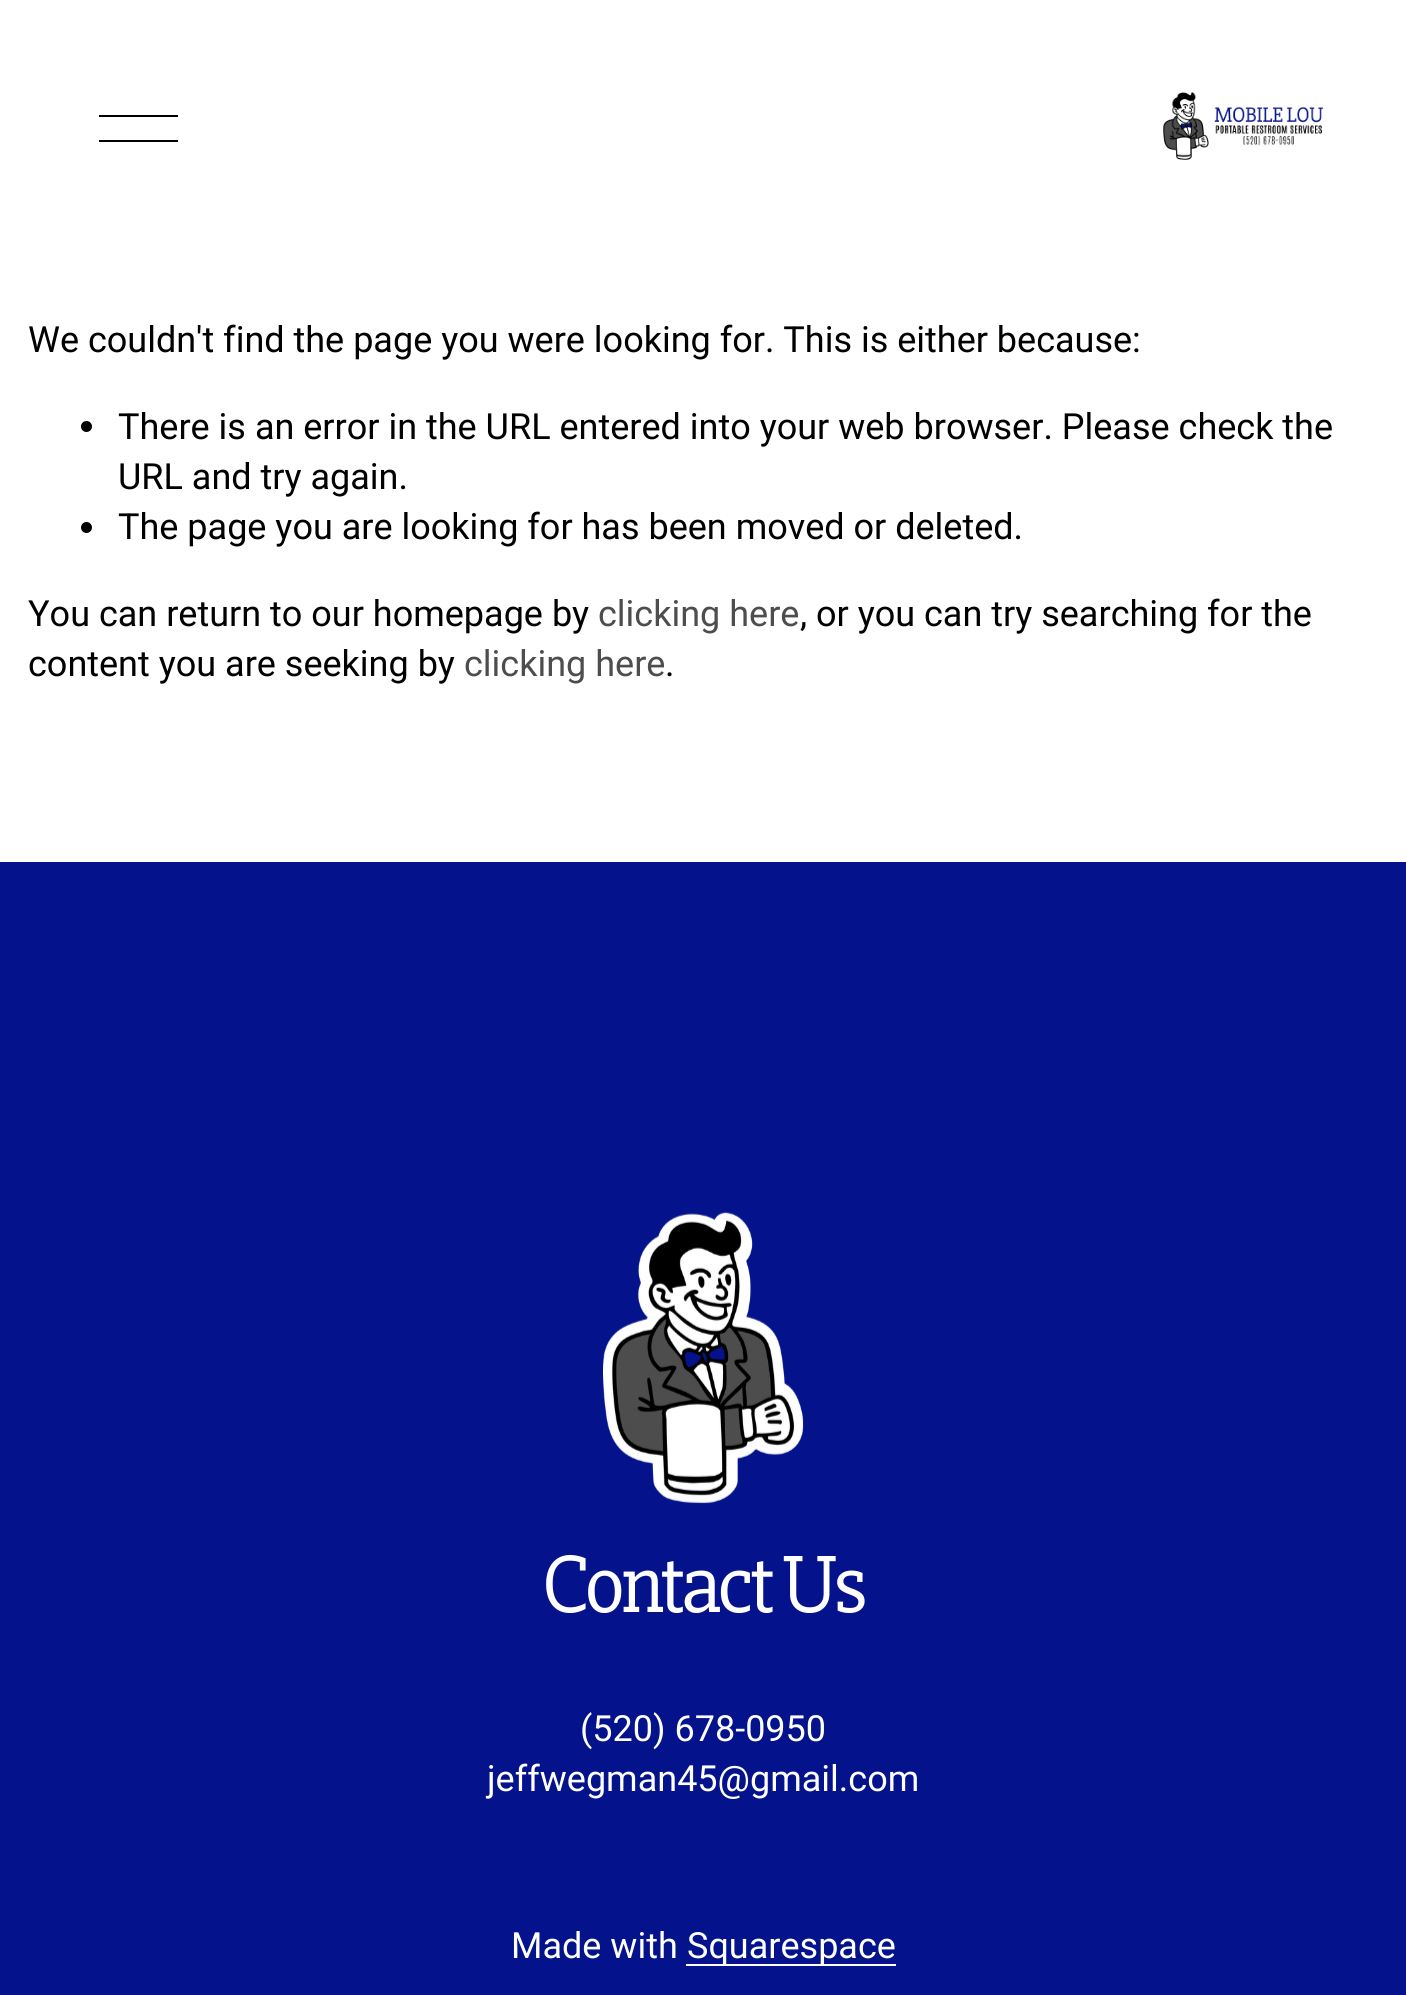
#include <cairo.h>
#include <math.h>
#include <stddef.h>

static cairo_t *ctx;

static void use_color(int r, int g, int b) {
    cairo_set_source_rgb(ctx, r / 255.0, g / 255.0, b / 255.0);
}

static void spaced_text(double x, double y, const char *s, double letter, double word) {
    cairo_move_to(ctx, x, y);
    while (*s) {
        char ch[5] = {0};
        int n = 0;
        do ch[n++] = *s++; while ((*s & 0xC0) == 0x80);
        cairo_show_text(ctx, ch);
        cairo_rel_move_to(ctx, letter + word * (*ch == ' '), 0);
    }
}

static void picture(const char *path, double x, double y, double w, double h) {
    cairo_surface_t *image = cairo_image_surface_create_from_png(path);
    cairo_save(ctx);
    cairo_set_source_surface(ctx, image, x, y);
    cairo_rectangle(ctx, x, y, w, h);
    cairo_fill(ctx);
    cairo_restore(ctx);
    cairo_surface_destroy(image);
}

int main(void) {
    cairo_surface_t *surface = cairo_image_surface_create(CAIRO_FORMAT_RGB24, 1406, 1995);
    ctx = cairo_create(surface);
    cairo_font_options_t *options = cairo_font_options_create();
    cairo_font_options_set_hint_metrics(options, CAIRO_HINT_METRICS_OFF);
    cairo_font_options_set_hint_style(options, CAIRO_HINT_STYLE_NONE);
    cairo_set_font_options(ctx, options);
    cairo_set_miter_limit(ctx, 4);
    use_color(255, 255, 255);
    cairo_paint(ctx);
    use_color(0, 0, 0);
    cairo_rectangle(ctx, 99, 115, 79, 2);
    cairo_fill(ctx);
    cairo_rectangle(ctx, 99, 140, 79, 2);
    cairo_fill(ctx);
    picture("img1.png", 1163, 92, 160, 68);
    cairo_select_font_face(ctx, "Roboto", CAIRO_FONT_SLANT_NORMAL, CAIRO_FONT_WEIGHT_NORMAL);
    cairo_set_font_size(ctx, 36);
    cairo_move_to(ctx, 28, 352);
    cairo_show_text(ctx, "We couldn't find the page you were looking for. This is either because:");
    cairo_new_path(ctx);
    cairo_arc(ctx, 86.5, 426.5, 5.5, 0, 2 * M_PI);
    cairo_fill(ctx);
    cairo_move_to(ctx, 118, 439);
    cairo_show_text(ctx, "There is an error in the URL entered into your web browser. Please check the");
    cairo_move_to(ctx, 118, 489);
    cairo_show_text(ctx, "URL and try again.");
    cairo_new_path(ctx);
    cairo_arc(ctx, 86.5, 527.5, 5.5, 0, 2 * M_PI);
    cairo_fill(ctx);
    cairo_move_to(ctx, 118, 539);
    cairo_show_text(ctx, "The page you are looking for has been moved or deleted.");
    cairo_move_to(ctx, 28, 626);
    cairo_show_text(ctx, "You can return to our homepage by");
    use_color(77, 77, 77);
    cairo_move_to(ctx, 598, 626);
    cairo_show_text(ctx, "clicking here");
    use_color(0, 0, 0);
    cairo_move_to(ctx, 800, 626);
    cairo_show_text(ctx, ", or you can try searching for the");
    cairo_move_to(ctx, 28, 676);
    cairo_show_text(ctx, "content you are seeking by");
    use_color(77, 77, 77);
    cairo_move_to(ctx, 464, 676);
    cairo_show_text(ctx, "clicking here");
    use_color(0, 0, 0);
    cairo_move_to(ctx, 665, 676);
    cairo_show_text(ctx, ".");
    use_color(4, 19, 139);
    cairo_rectangle(ctx, 0, 862, 1406, 1133);
    cairo_fill(ctx);
    picture("img2.png", 603, 1212, 201, 292);
    cairo_select_font_face(ctx, "Slabo 27px", CAIRO_FONT_SLANT_NORMAL, CAIRO_FONT_WEIGHT_NORMAL);
    cairo_set_font_size(ctx, 84);
    use_color(255, 255, 255);
    spaced_text(542, 1612, "Contact Us", -4.25, 0);
    cairo_select_font_face(ctx, "Roboto", CAIRO_FONT_SLANT_NORMAL, CAIRO_FONT_WEIGHT_NORMAL);
    cairo_set_font_size(ctx, 36);
    cairo_move_to(ctx, 580, 1741);
    cairo_show_text(ctx, "(520) 678-0950");
    cairo_move_to(ctx, 487, 1791);
    cairo_show_text(ctx, "jeffwegman45@gmail.com");
    cairo_move_to(ctx, 511, 1958);
    cairo_show_text(ctx, "Made with");
    cairo_rectangle(ctx, 686, 1964, 210, 2);
    cairo_fill(ctx);
    cairo_move_to(ctx, 687, 1958);
    cairo_show_text(ctx, "Squarespace");
    cairo_surface_write_to_png(surface, "result.png");
    cairo_font_options_destroy(options);
    cairo_destroy(ctx);
    cairo_surface_destroy(surface);
    return 0;
}
